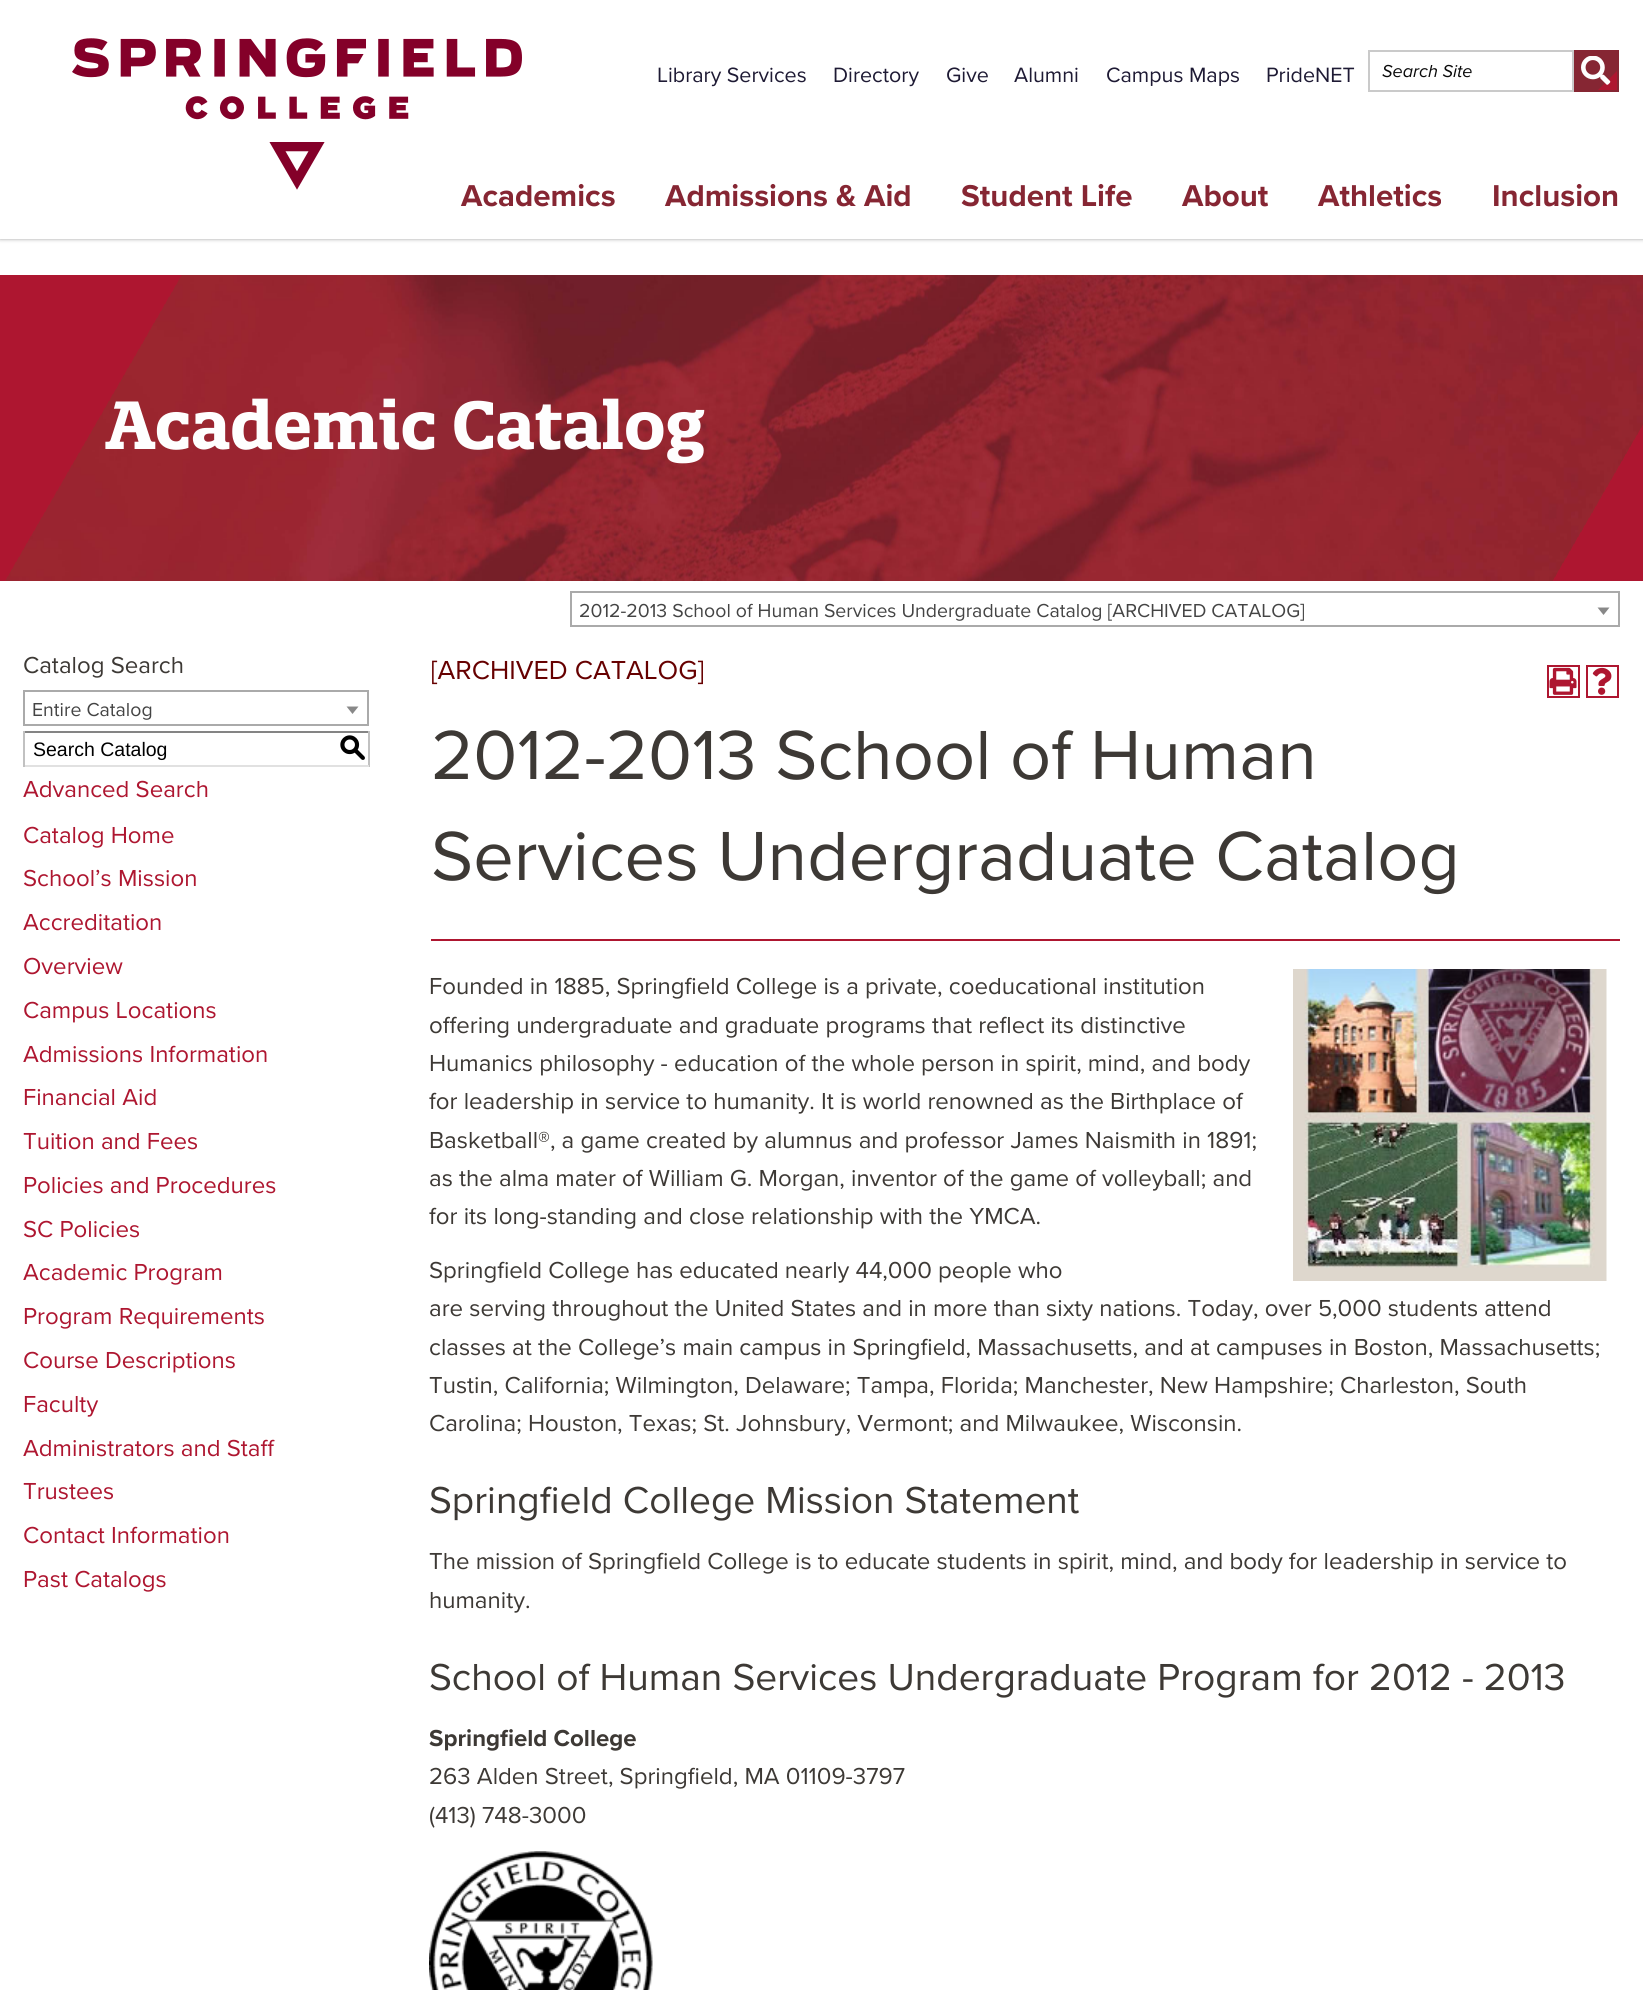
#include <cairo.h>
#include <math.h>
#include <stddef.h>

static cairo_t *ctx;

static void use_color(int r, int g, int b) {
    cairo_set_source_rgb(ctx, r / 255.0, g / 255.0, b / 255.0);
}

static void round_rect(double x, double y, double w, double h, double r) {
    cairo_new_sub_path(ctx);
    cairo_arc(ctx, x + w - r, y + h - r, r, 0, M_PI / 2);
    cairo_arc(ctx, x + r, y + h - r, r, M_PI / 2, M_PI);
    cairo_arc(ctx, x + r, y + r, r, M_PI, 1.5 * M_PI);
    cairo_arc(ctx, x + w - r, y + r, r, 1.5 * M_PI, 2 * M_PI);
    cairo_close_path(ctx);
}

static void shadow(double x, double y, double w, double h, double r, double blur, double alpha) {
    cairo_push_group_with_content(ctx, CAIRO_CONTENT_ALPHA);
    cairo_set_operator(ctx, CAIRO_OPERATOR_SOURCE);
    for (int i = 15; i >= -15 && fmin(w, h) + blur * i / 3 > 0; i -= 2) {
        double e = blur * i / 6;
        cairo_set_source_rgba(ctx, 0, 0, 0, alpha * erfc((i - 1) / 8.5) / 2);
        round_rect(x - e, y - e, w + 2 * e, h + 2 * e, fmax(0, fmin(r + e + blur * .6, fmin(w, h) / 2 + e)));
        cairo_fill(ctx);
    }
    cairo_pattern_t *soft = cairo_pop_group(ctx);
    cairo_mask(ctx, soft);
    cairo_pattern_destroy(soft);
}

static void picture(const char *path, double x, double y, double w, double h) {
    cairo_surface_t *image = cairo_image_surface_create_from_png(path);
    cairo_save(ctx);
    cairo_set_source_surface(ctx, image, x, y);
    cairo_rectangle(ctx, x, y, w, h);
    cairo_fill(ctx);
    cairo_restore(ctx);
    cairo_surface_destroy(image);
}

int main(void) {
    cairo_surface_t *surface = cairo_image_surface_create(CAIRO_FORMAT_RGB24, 1643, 1990);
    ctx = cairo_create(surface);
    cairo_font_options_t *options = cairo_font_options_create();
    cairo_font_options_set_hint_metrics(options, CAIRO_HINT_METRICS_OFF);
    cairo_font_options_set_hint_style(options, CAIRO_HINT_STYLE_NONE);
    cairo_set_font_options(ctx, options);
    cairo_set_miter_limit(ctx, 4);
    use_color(255, 255, 255);
    cairo_paint(ctx);
    cairo_save(ctx);
    cairo_set_fill_rule(ctx, CAIRO_FILL_RULE_EVEN_ODD);
    cairo_new_path(ctx);
    cairo_move_to(ctx, 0, 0);
    cairo_line_to(ctx, 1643, 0);
    cairo_line_to(ctx, 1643, 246);
    cairo_line_to(ctx, 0, 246);
    cairo_close_path(ctx);
    cairo_move_to(ctx, 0, 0);
    cairo_line_to(ctx, 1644, 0);
    cairo_line_to(ctx, 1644, 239);
    cairo_line_to(ctx, 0, 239);
    cairo_close_path(ctx);
    cairo_clip(ctx);
    use_color(161, 161, 161);
    shadow(0, 0, 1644, 239, 0, 2, 1);
    cairo_restore(ctx);
    picture("img1.png", 72, 38, 450, 152);
    cairo_select_font_face(ctx, "Proxima Nova", CAIRO_FONT_SLANT_NORMAL, CAIRO_FONT_WEIGHT_NORMAL);
    cairo_set_font_size(ctx, 21.5);
    use_color(30, 26, 52);
    cairo_move_to(ctx, 657, 82);
    cairo_show_text(ctx, "Library Services");
    cairo_move_to(ctx, 833, 82);
    cairo_show_text(ctx, "Directory");
    cairo_move_to(ctx, 946, 82);
    cairo_show_text(ctx, "Give");
    cairo_move_to(ctx, 1014, 82);
    cairo_show_text(ctx, "Alumni");
    cairo_move_to(ctx, 1106, 82);
    cairo_show_text(ctx, "Campus Maps");
    cairo_move_to(ctx, 1266, 82);
    cairo_show_text(ctx, "PrideNET");
    cairo_rectangle(ctx, 1369, 51, 204, 40);
    use_color(202, 202, 202);
    cairo_stroke(ctx);
    cairo_select_font_face(ctx, "Proxima Nova", CAIRO_FONT_SLANT_ITALIC, CAIRO_FONT_WEIGHT_NORMAL);
    cairo_set_font_size(ctx, 18);
    use_color(10, 10, 10);
    cairo_move_to(ctx, 1382, 77);
    cairo_show_text(ctx, "Search Site");
    use_color(134, 38, 51);
    cairo_rectangle(ctx, 1574, 50, 45, 42);
    cairo_fill(ctx);
    cairo_save(ctx);
    cairo_rectangle(ctx, 1575, 51, 42, 39);
    cairo_clip(ctx);
    use_color(174, 22, 48);
    cairo_new_path(ctx);
    cairo_move_to(ctx, 1637, 51);
    cairo_line_to(ctx, 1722, 51);
    cairo_line_to(ctx, 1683, 90);
    cairo_line_to(ctx, 1598, 90);
    cairo_close_path(ctx);
    cairo_fill(ctx);
    cairo_restore(ctx);
    picture("img2.png", 1581, 56, 30, 29);
    cairo_select_font_face(ctx, "Proxima Nova", CAIRO_FONT_SLANT_NORMAL, CAIRO_FONT_WEIGHT_BOLD);
    cairo_set_font_size(ctx, 31.25);
    cairo_move_to(ctx, 461, 206);
    cairo_show_text(ctx, "Academics");
    cairo_move_to(ctx, 665, 206);
    cairo_show_text(ctx, "Admissions & Aid");
    cairo_move_to(ctx, 961, 206);
    cairo_show_text(ctx, "Student Life");
    cairo_move_to(ctx, 1182, 206);
    cairo_show_text(ctx, "About");
    cairo_move_to(ctx, 1318, 206);
    cairo_show_text(ctx, "Athletics");
    cairo_move_to(ctx, 1492, 206);
    cairo_show_text(ctx, "Inclusion");
    use_color(174, 22, 48);
    cairo_rectangle(ctx, 0, 275, 6, 306);
    cairo_fill(ctx);
    picture("img3.png", 6, 275, 1637, 306);
    cairo_select_font_face(ctx, "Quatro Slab", CAIRO_FONT_SLANT_NORMAL, CAIRO_FONT_WEIGHT_BOLD);
    cairo_set_font_size(ctx, 66);
    use_color(254, 254, 254);
    cairo_move_to(ctx, 105, 449);
    cairo_show_text(ctx, "Academic Catalog");
    cairo_rectangle(ctx, 571, 592, 1048, 34);
    use_color(170, 170, 170);
    cairo_stroke(ctx);
    cairo_select_font_face(ctx, "Proxima Nova", CAIRO_FONT_SLANT_NORMAL, CAIRO_FONT_WEIGHT_NORMAL);
    cairo_set_font_size(ctx, 19.5);
    use_color(68, 68, 68);
    cairo_move_to(ctx, 579, 617);
    cairo_show_text(ctx, "2012-2013 School of Human Services Undergraduate Catalog [ARCHIVED CATALOG]");
    use_color(136, 136, 136);
    cairo_new_path(ctx);
    cairo_move_to(ctx, 1597.5, 607.5);
    cairo_line_to(ctx, 1609.5, 607.5);
    cairo_line_to(ctx, 1603.5, 615);
    cairo_close_path(ctx);
    cairo_fill(ctx);
    cairo_set_font_size(ctx, 24);
    use_color(61, 57, 53);
    cairo_move_to(ctx, 23, 673);
    cairo_show_text(ctx, "Catalog Search");
    cairo_rectangle(ctx, 24, 691, 344, 34);
    use_color(170, 170, 170);
    cairo_stroke(ctx);
    cairo_set_font_size(ctx, 19.5);
    use_color(68, 68, 68);
    cairo_move_to(ctx, 32, 716);
    cairo_show_text(ctx, "Entire Catalog");
    use_color(136, 136, 136);
    cairo_new_path(ctx);
    cairo_move_to(ctx, 346.5, 706.5);
    cairo_line_to(ctx, 358.5, 706.5);
    cairo_line_to(ctx, 352.5, 714);
    cairo_close_path(ctx);
    cairo_fill(ctx);
    use_color(132, 132, 132);
    cairo_rectangle(ctx, 23, 731, 346, 2);
    cairo_fill(ctx);
    use_color(193, 193, 193);
    cairo_rectangle(ctx, 368, 731, 2, 36);
    cairo_fill(ctx);
    use_color(225, 225, 225);
    cairo_rectangle(ctx, 23, 765, 346, 2);
    cairo_fill(ctx);
    use_color(193, 193, 193);
    cairo_rectangle(ctx, 23, 731, 2, 36);
    cairo_fill(ctx);
    cairo_select_font_face(ctx, "Liberation Sans", CAIRO_FONT_SLANT_NORMAL, CAIRO_FONT_WEIGHT_NORMAL);
    use_color(0, 0, 0);
    cairo_move_to(ctx, 33, 756);
    cairo_show_text(ctx, "Search Catalog");
    cairo_select_font_face(ctx, "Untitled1 Medium", CAIRO_FONT_SLANT_NORMAL, CAIRO_FONT_WEIGHT_NORMAL);
    cairo_set_font_size(ctx, 27);
    cairo_move_to(ctx, 339, 756);
    cairo_show_text(ctx, "S");
    cairo_select_font_face(ctx, "Proxima Nova", CAIRO_FONT_SLANT_NORMAL, CAIRO_FONT_WEIGHT_NORMAL);
    cairo_set_font_size(ctx, 24);
    use_color(174, 22, 48);
    cairo_move_to(ctx, 23, 797);
    cairo_show_text(ctx, "Advanced Search");
    cairo_move_to(ctx, 23, 843);
    cairo_show_text(ctx, "Catalog Home");
    cairo_move_to(ctx, 23, 886);
    cairo_show_text(ctx, "School’s Mission");
    cairo_move_to(ctx, 23, 930);
    cairo_show_text(ctx, "Accreditation");
    cairo_move_to(ctx, 23, 974);
    cairo_show_text(ctx, "Overview");
    cairo_move_to(ctx, 23, 1018);
    cairo_show_text(ctx, "Campus Locations");
    cairo_move_to(ctx, 23, 1062);
    cairo_show_text(ctx, "Admissions Information");
    cairo_move_to(ctx, 23, 1105);
    cairo_show_text(ctx, "Financial Aid");
    cairo_move_to(ctx, 23, 1149);
    cairo_show_text(ctx, "Tuition and Fees");
    cairo_move_to(ctx, 23, 1193);
    cairo_show_text(ctx, "Policies and Procedures");
    cairo_move_to(ctx, 23, 1237);
    cairo_show_text(ctx, "SC Policies");
    cairo_move_to(ctx, 23, 1280);
    cairo_show_text(ctx, "Academic Program");
    cairo_move_to(ctx, 23, 1324);
    cairo_show_text(ctx, "Program Requirements");
    cairo_move_to(ctx, 23, 1368);
    cairo_show_text(ctx, "Course Descriptions");
    cairo_move_to(ctx, 23, 1412);
    cairo_show_text(ctx, "Faculty");
    cairo_move_to(ctx, 23, 1456);
    cairo_show_text(ctx, "Administrators and Staff");
    cairo_move_to(ctx, 23, 1499);
    cairo_show_text(ctx, "Trustees");
    cairo_move_to(ctx, 23, 1543);
    cairo_show_text(ctx, "Contact Information");
    cairo_move_to(ctx, 23, 1587);
    cairo_show_text(ctx, "Past Catalogs");
    cairo_set_font_size(ctx, 27);
    use_color(102, 0, 0);
    cairo_move_to(ctx, 431, 679);
    cairo_show_text(ctx, "[ARCHIVED CATALOG]");
    cairo_rectangle(ctx, 1548, 666, 31, 31);
    use_color(174, 22, 48);
    cairo_stroke(ctx);
    picture("img4.png", 1549, 667, 28, 28);
    cairo_rectangle(ctx, 1587, 666, 31, 31);
    cairo_stroke(ctx);
    picture("img5.png", 1592, 667, 20, 28);
    cairo_set_font_size(ctx, 72);
    use_color(61, 57, 53);
    cairo_move_to(ctx, 431, 779);
    cairo_show_text(ctx, "2012-2013 School of Human");
    cairo_move_to(ctx, 431, 880);
    cairo_show_text(ctx, "Services Undergraduate Catalog");
    use_color(174, 22, 48);
    cairo_rectangle(ctx, 431, 939, 1189, 2);
    cairo_fill(ctx);
    cairo_set_font_size(ctx, 24);
    use_color(61, 57, 53);
    cairo_move_to(ctx, 429, 994);
    cairo_show_text(ctx, "Founded in 1885, Springfield College is a private, coeducational institution");
    picture("img6.png", 1293, 969, 314, 312);
    cairo_move_to(ctx, 429, 1033);
    cairo_show_text(ctx, "offering undergraduate and graduate programs that reflect its distinctive");
    cairo_move_to(ctx, 429, 1071);
    cairo_show_text(ctx, "Humanics philosophy - education of the whole person in spirit, mind, and body");
    cairo_move_to(ctx, 429, 1109);
    cairo_show_text(ctx, "for leadership in service to humanity. It is world renowned as the Birthplace of");
    cairo_move_to(ctx, 429, 1148);
    cairo_show_text(ctx, "Basketball®, a game created by alumnus and professor James Naismith in 1891;");
    cairo_move_to(ctx, 429, 1186);
    cairo_show_text(ctx, "as the alma mater of William G. Morgan, inventor of the game of volleyball; and");
    cairo_move_to(ctx, 429, 1224);
    cairo_show_text(ctx, "for its long-standing and close relationship with the YMCA.");
    cairo_move_to(ctx, 429, 1278);
    cairo_show_text(ctx, "Springfield College has educated nearly 44,000 people who");
    cairo_move_to(ctx, 429, 1316);
    cairo_show_text(ctx, "are serving throughout the United States and in more than sixty nations. Today, over 5,000 students attend");
    cairo_move_to(ctx, 429, 1355);
    cairo_show_text(ctx, "classes at the College’s main campus in Springfield, Massachusetts, and at campuses in Boston, Massachusetts;");
    cairo_move_to(ctx, 429, 1393);
    cairo_show_text(ctx, "Tustin, California; Wilmington, Delaware; Tampa, Florida; Manchester, New Hampshire; Charleston, South");
    cairo_move_to(ctx, 429, 1431);
    cairo_show_text(ctx, "Carolina; Houston, Texas; St. Johnsbury, Vermont; and Milwaukee, Wisconsin.");
    cairo_set_font_size(ctx, 39);
    cairo_move_to(ctx, 429, 1513);
    cairo_show_text(ctx, "Springfield College Mission Statement");
    cairo_set_font_size(ctx, 24);
    cairo_move_to(ctx, 429, 1569);
    cairo_show_text(ctx, "The mission of Springfield College is to educate students in spirit, mind, and body for leadership in service to");
    cairo_move_to(ctx, 429, 1608);
    cairo_show_text(ctx, "humanity.");
    cairo_set_font_size(ctx, 39);
    cairo_move_to(ctx, 429, 1690);
    cairo_show_text(ctx, "School of Human Services Undergraduate Program for 2012 - 2013");
    cairo_select_font_face(ctx, "Proxima Nova", CAIRO_FONT_SLANT_NORMAL, CAIRO_FONT_WEIGHT_BOLD);
    cairo_set_font_size(ctx, 24);
    cairo_move_to(ctx, 429, 1746);
    cairo_show_text(ctx, "Springfield College");
    cairo_select_font_face(ctx, "Proxima Nova", CAIRO_FONT_SLANT_NORMAL, CAIRO_FONT_WEIGHT_NORMAL);
    cairo_move_to(ctx, 429, 1784);
    cairo_show_text(ctx, "263 Alden Street, Springfield, MA 01109-3797");
    cairo_move_to(ctx, 429, 1823);
    cairo_show_text(ctx, "(413) 748-3000");
    picture("img7.png", 429, 1851, 224, 139);
    cairo_surface_write_to_png(surface, "result.png");
    cairo_font_options_destroy(options);
    cairo_destroy(ctx);
    cairo_surface_destroy(surface);
    return 0;
}
